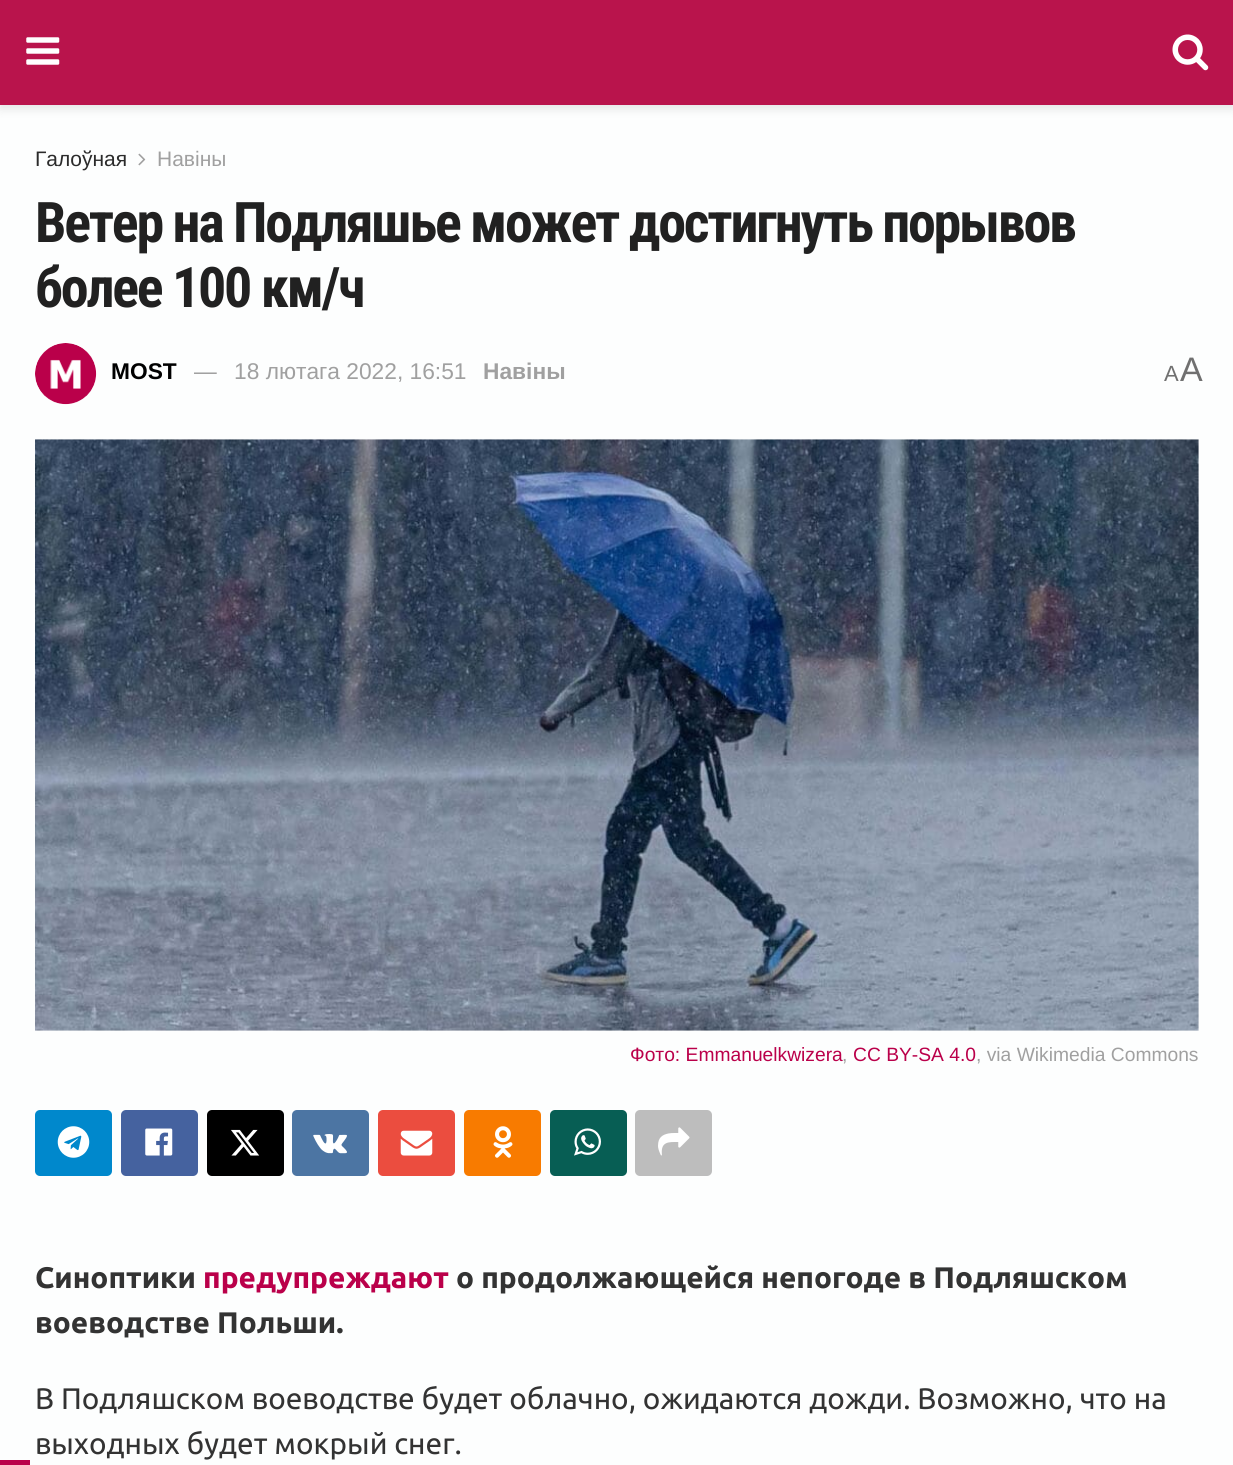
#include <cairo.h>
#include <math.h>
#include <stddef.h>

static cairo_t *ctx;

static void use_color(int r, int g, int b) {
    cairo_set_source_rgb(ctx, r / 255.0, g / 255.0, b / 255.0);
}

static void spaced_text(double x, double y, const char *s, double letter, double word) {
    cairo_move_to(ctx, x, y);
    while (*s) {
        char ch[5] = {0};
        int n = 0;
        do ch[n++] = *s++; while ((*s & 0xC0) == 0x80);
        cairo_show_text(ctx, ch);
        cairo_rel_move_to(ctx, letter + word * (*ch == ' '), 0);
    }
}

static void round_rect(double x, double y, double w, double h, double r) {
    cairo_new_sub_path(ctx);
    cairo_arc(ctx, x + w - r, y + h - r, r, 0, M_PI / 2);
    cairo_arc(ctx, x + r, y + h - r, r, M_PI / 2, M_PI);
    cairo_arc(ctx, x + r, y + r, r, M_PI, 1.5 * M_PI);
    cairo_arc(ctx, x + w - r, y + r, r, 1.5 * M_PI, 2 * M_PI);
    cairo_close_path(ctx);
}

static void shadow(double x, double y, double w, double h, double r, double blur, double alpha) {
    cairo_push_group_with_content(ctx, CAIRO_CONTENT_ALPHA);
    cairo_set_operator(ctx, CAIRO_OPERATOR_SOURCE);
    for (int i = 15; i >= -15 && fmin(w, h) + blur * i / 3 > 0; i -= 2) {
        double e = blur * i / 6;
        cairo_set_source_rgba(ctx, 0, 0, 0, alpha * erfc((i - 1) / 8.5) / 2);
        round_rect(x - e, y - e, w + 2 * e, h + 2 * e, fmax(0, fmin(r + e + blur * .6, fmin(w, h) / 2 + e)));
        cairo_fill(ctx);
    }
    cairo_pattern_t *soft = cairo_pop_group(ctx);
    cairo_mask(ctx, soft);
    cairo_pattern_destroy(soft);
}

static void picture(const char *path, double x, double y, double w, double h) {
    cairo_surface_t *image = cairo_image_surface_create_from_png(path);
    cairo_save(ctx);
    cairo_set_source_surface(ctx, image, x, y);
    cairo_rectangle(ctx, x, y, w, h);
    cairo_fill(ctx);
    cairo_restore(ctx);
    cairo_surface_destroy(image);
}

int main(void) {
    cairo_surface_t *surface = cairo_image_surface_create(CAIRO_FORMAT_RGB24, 1233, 1465);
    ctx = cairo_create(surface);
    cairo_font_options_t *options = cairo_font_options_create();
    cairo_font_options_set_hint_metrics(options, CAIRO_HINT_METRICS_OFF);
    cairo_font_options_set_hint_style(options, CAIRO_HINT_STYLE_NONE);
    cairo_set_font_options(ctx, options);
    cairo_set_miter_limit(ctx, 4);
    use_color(253, 254, 254);
    cairo_paint(ctx);
    use_color(0, 0, 0);
    shadow(0, 4, 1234, 105, 0, 5, 0.1);
    use_color(185, 20, 76);
    cairo_rectangle(ctx, 0, 0, 1233, 105);
    cairo_fill(ctx);
    picture("img1.png", 26, 37, 34, 28);
    picture("img2.png", 1172, 34, 37, 37);
    cairo_select_font_face(ctx, "Liberation Sans", CAIRO_FONT_SLANT_NORMAL, CAIRO_FONT_WEIGHT_NORMAL);
    cairo_set_font_size(ctx, 21);
    use_color(43, 43, 43);
    cairo_move_to(ctx, 35, 166);
    cairo_show_text(ctx, "Галоўная");
    picture("img3.png", 138, 153, 8, 13);
    use_color(160, 160, 160);
    cairo_move_to(ctx, 157, 166);
    cairo_show_text(ctx, "Навіны");
    cairo_select_font_face(ctx, "Roboto Condensed", CAIRO_FONT_SLANT_NORMAL, CAIRO_FONT_WEIGHT_BOLD);
    cairo_set_font_size(ctx, 56);
    use_color(33, 33, 33);
    spaced_text(35, 242, "Ветер на Подляшье может достигнуть порывов", -2.25, 0);
    spaced_text(35, 307, "более 100 км/ч", -2.25, 0);
    picture("img4.png", 35, 343, 62, 62);
    cairo_select_font_face(ctx, "Liberation Sans", CAIRO_FONT_SLANT_NORMAL, CAIRO_FONT_WEIGHT_BOLD);
    cairo_set_font_size(ctx, 22.75);
    use_color(0, 0, 0);
    cairo_move_to(ctx, 111, 379);
    cairo_show_text(ctx, "MOST");
    cairo_select_font_face(ctx, "Liberation Sans", CAIRO_FONT_SLANT_NORMAL, CAIRO_FONT_WEIGHT_NORMAL);
    use_color(160, 160, 160);
    cairo_move_to(ctx, 194, 379);
    cairo_show_text(ctx, "—");
    cairo_move_to(ctx, 234, 379);
    cairo_show_text(ctx, "18 лютага 2022, 16:51");
    cairo_select_font_face(ctx, "Liberation Sans", CAIRO_FONT_SLANT_NORMAL, CAIRO_FONT_WEIGHT_BOLD);
    cairo_move_to(ctx, 483, 379);
    cairo_show_text(ctx, "Навіны");
    cairo_select_font_face(ctx, "Liberation Sans", CAIRO_FONT_SLANT_NORMAL, CAIRO_FONT_WEIGHT_NORMAL);
    cairo_set_font_size(ctx, 22);
    use_color(112, 112, 112);
    cairo_move_to(ctx, 1164, 381);
    cairo_show_text(ctx, "A");
    cairo_set_font_size(ctx, 34);
    cairo_move_to(ctx, 1180, 381);
    cairo_show_text(ctx, "A");
    use_color(247, 247, 247);
    cairo_rectangle(ctx, 35, 439, 1164, 592);
    cairo_fill(ctx);
    picture("img5.png", 35, 439, 1164, 592);
    cairo_set_font_size(ctx, 19.25);
    use_color(186, 0, 74);
    cairo_move_to(ctx, 630, 1061);
    cairo_show_text(ctx, "Фото: Emmanuelkwizera");
    use_color(160, 160, 160);
    cairo_move_to(ctx, 842, 1061);
    cairo_show_text(ctx, ",");
    use_color(186, 0, 74);
    cairo_move_to(ctx, 853, 1061);
    cairo_show_text(ctx, "CC BY-SA 4.0");
    use_color(160, 160, 160);
    cairo_move_to(ctx, 976, 1061);
    cairo_show_text(ctx, ", via Wikimedia Commons");
    use_color(0, 136, 204);
    round_rect(35, 1110, 77, 66, 5);
    cairo_fill(ctx);
    picture("img6.png", 57, 1126, 33, 32);
    use_color(69, 98, 159);
    round_rect(121, 1110, 77, 66, 5);
    cairo_fill(ctx);
    picture("img7.png", 145, 1128, 28, 28);
    use_color(0, 0, 0);
    round_rect(207, 1110, 77, 66, 5);
    cairo_fill(ctx);
    picture("img8.png", 231, 1129, 29, 27);
    use_color(76, 117, 163);
    round_rect(292, 1110, 77, 66, 5);
    cairo_fill(ctx);
    picture("img9.png", 313, 1134, 34, 20);
    use_color(235, 77, 63);
    round_rect(378, 1110, 77, 66, 5);
    cairo_fill(ctx);
    picture("img10.png", 400, 1130, 33, 26);
    use_color(248, 123, 0);
    round_rect(464, 1110, 77, 66, 5);
    cairo_fill(ctx);
    picture("img11.png", 493, 1126, 20, 32);
    use_color(7, 94, 84);
    round_rect(550, 1110, 77, 66, 5);
    cairo_fill(ctx);
    picture("img12.png", 574, 1128, 27, 28);
    use_color(189, 189, 189);
    round_rect(635, 1110, 77, 66, 5);
    cairo_fill(ctx);
    picture("img13.png", 658, 1127, 32, 29);
    cairo_select_font_face(ctx, "Ubuntu", CAIRO_FONT_SLANT_NORMAL, CAIRO_FONT_WEIGHT_BOLD);
    cairo_set_font_size(ctx, 29.75);
    use_color(51, 51, 51);
    cairo_move_to(ctx, 35, 1288);
    cairo_show_text(ctx, "Синоптики");
    use_color(186, 0, 74);
    cairo_move_to(ctx, 203, 1288);
    cairo_show_text(ctx, "предупреждают");
    use_color(51, 51, 51);
    cairo_move_to(ctx, 456, 1288);
    cairo_show_text(ctx, "о продолжающейся непогоде в Подляшском");
    cairo_move_to(ctx, 35, 1333);
    cairo_show_text(ctx, "воеводстве Польши.");
    cairo_select_font_face(ctx, "Ubuntu", CAIRO_FONT_SLANT_NORMAL, CAIRO_FONT_WEIGHT_NORMAL);
    cairo_move_to(ctx, 35, 1409);
    cairo_show_text(ctx, "В Подляшском воеводстве будет облачно, ожидаются дожди. Возможно, что на");
    cairo_move_to(ctx, 35, 1454);
    cairo_show_text(ctx, "выходных будет мокрый снег.");
    use_color(186, 0, 74);
    cairo_rectangle(ctx, 0, 1460, 30, 5);
    cairo_fill(ctx);
    cairo_surface_write_to_png(surface, "result.png");
    cairo_font_options_destroy(options);
    cairo_destroy(ctx);
    cairo_surface_destroy(surface);
    return 0;
}
